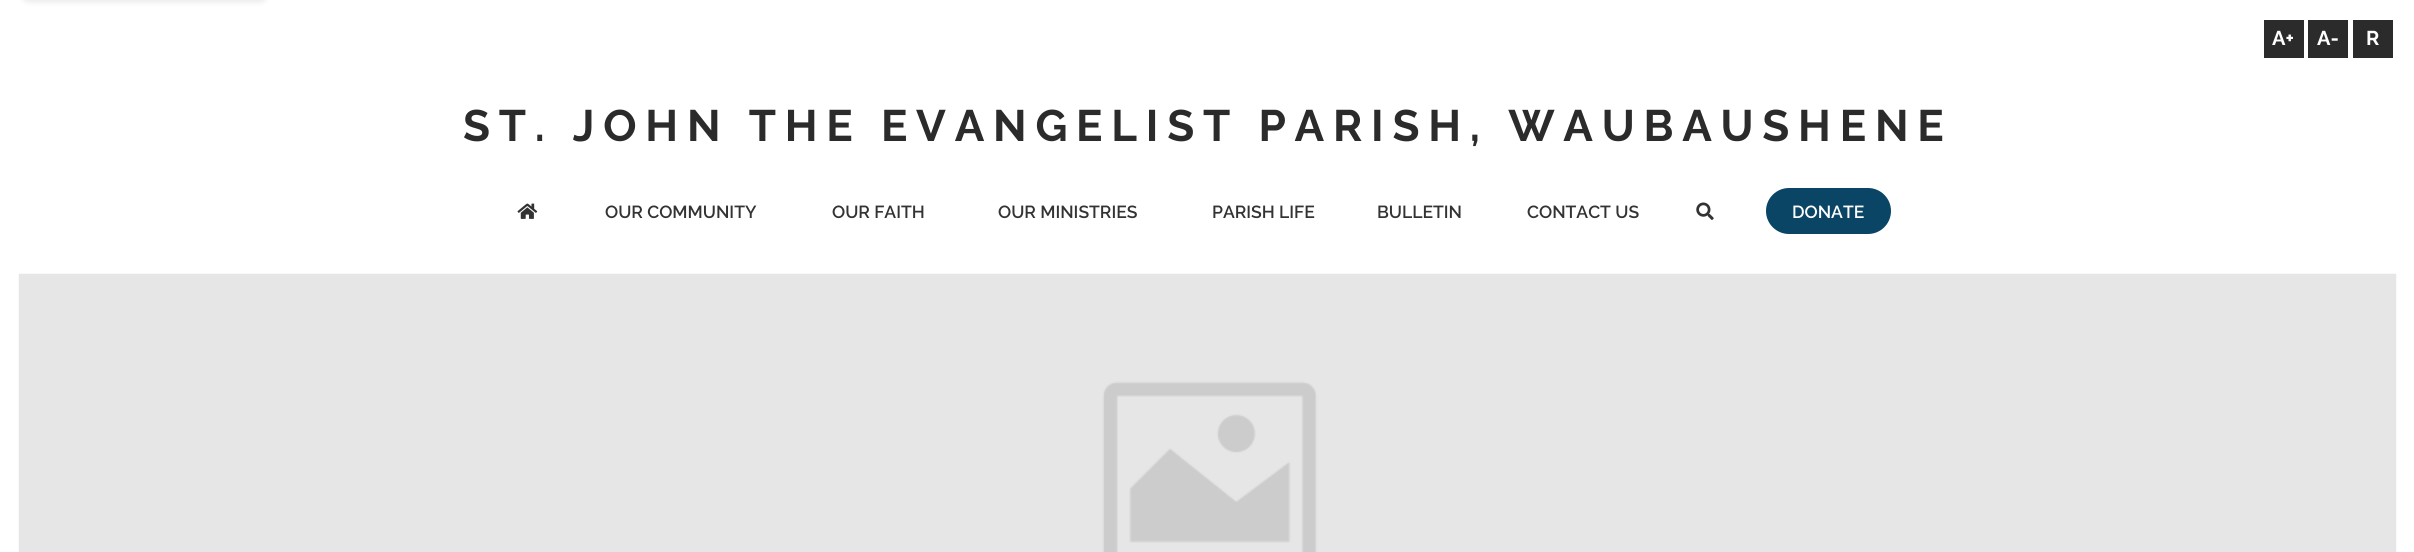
#include <cairo.h>
#include <math.h>
#include <stddef.h>

static cairo_t *ctx;

static void use_color(int r, int g, int b) {
    cairo_set_source_rgb(ctx, r / 255.0, g / 255.0, b / 255.0);
}

static void spaced_text(double x, double y, const char *s, double letter, double word) {
    cairo_move_to(ctx, x, y);
    while (*s) {
        char ch[5] = {0};
        int n = 0;
        do ch[n++] = *s++; while ((*s & 0xC0) == 0x80);
        cairo_show_text(ctx, ch);
        cairo_rel_move_to(ctx, letter + word * (*ch == ' '), 0);
    }
}

static void round_rect(double x, double y, double w, double h, double r) {
    cairo_new_sub_path(ctx);
    cairo_arc(ctx, x + w - r, y + h - r, r, 0, M_PI / 2);
    cairo_arc(ctx, x + r, y + h - r, r, M_PI / 2, M_PI);
    cairo_arc(ctx, x + r, y + r, r, M_PI, 1.5 * M_PI);
    cairo_arc(ctx, x + w - r, y + r, r, 1.5 * M_PI, 2 * M_PI);
    cairo_close_path(ctx);
}

static void shadow(double x, double y, double w, double h, double r, double blur, double alpha) {
    cairo_push_group_with_content(ctx, CAIRO_CONTENT_ALPHA);
    cairo_set_operator(ctx, CAIRO_OPERATOR_SOURCE);
    for (int i = 15; i >= -15 && fmin(w, h) + blur * i / 3 > 0; i -= 2) {
        double e = blur * i / 6;
        cairo_set_source_rgba(ctx, 0, 0, 0, alpha * erfc((i - 1) / 8.5) / 2);
        round_rect(x - e, y - e, w + 2 * e, h + 2 * e, fmax(0, fmin(r + e + blur * .6, fmin(w, h) / 2 + e)));
        cairo_fill(ctx);
    }
    cairo_pattern_t *soft = cairo_pop_group(ctx);
    cairo_mask(ctx, soft);
    cairo_pattern_destroy(soft);
}

static void picture(const char *path, double x, double y, double w, double h) {
    cairo_surface_t *image = cairo_image_surface_create_from_png(path);
    cairo_save(ctx);
    cairo_set_source_surface(ctx, image, x, y);
    cairo_rectangle(ctx, x, y, w, h);
    cairo_fill(ctx);
    cairo_restore(ctx);
    cairo_surface_destroy(image);
}

int main(void) {
    cairo_surface_t *surface = cairo_image_surface_create(CAIRO_FORMAT_RGB24, 2414, 552);
    ctx = cairo_create(surface);
    cairo_font_options_t *options = cairo_font_options_create();
    cairo_font_options_set_hint_metrics(options, CAIRO_HINT_METRICS_OFF);
    cairo_font_options_set_hint_style(options, CAIRO_HINT_STYLE_NONE);
    cairo_set_font_options(ctx, options);
    cairo_set_miter_limit(ctx, 4);
    use_color(255, 255, 255);
    cairo_paint(ctx);
    use_color(0, 0, 0);
    shadow(19, -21, 251, 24, 13, 2.5, 0.07);
    use_color(43, 43, 43);
    cairo_rectangle(ctx, 2264, 20, 40, 38);
    cairo_fill(ctx);
    cairo_select_font_face(ctx, "Raleway", CAIRO_FONT_SLANT_NORMAL, CAIRO_FONT_WEIGHT_BOLD);
    cairo_set_font_size(ctx, 20);
    use_color(255, 255, 255);
    cairo_move_to(ctx, 2272, 45);
    cairo_show_text(ctx, "A+");
    use_color(43, 43, 43);
    cairo_rectangle(ctx, 2308, 20, 40, 38);
    cairo_fill(ctx);
    use_color(255, 255, 255);
    cairo_move_to(ctx, 2317, 45);
    cairo_show_text(ctx, "A-");
    use_color(43, 43, 43);
    cairo_rectangle(ctx, 2353, 20, 40, 38);
    cairo_fill(ctx);
    use_color(255, 255, 255);
    cairo_move_to(ctx, 2366, 45);
    cairo_show_text(ctx, "R");
    cairo_set_font_size(ctx, 44);
    use_color(43, 43, 43);
    spaced_text(463, 141, "ST. JOHN THE EVANGELIST PARISH, WAUBAUSHENE", 8.8, 0);
    picture("img1.png", 517, 203, 21, 16);
    cairo_select_font_face(ctx, "Raleway SemiBold", CAIRO_FONT_SLANT_NORMAL, CAIRO_FONT_WEIGHT_NORMAL);
    cairo_set_font_size(ctx, 17.5);
    use_color(51, 51, 51);
    cairo_move_to(ctx, 605, 218);
    cairo_show_text(ctx, "OUR COMMUNITY");
    cairo_move_to(ctx, 832, 218);
    cairo_show_text(ctx, "OUR FAITH");
    cairo_move_to(ctx, 998, 218);
    cairo_show_text(ctx, "OUR MINISTRIES");
    cairo_move_to(ctx, 1212, 218);
    cairo_show_text(ctx, "PARISH LIFE");
    cairo_move_to(ctx, 1377, 218);
    cairo_show_text(ctx, "BULLETIN");
    cairo_move_to(ctx, 1527, 218);
    cairo_show_text(ctx, "CONTACT US");
    picture("img2.png", 1696, 202, 18, 18);
    use_color(10, 69, 102);
    round_rect(1766, 188, 125, 46, 23);
    cairo_fill(ctx);
    use_color(255, 255, 255);
    cairo_move_to(ctx, 1792, 218);
    cairo_show_text(ctx, "DONATE");
    picture("img3.png", 18, 273, 2379, 279);
    cairo_surface_write_to_png(surface, "result.png");
    cairo_font_options_destroy(options);
    cairo_destroy(ctx);
    cairo_surface_destroy(surface);
    return 0;
}
